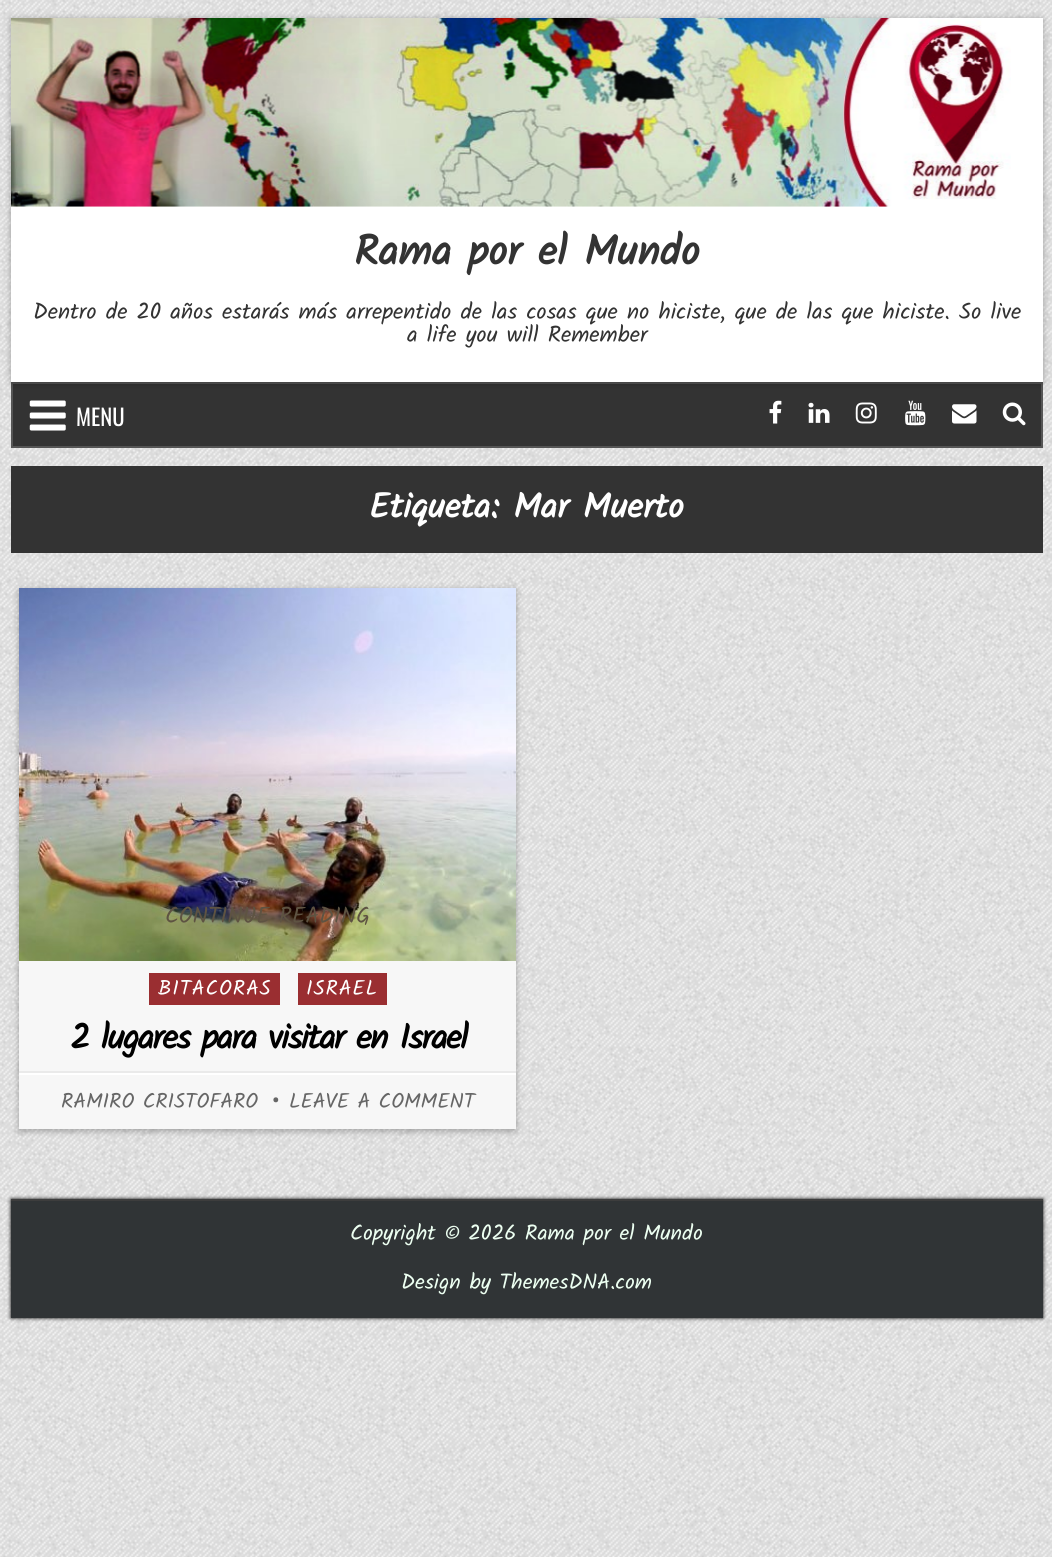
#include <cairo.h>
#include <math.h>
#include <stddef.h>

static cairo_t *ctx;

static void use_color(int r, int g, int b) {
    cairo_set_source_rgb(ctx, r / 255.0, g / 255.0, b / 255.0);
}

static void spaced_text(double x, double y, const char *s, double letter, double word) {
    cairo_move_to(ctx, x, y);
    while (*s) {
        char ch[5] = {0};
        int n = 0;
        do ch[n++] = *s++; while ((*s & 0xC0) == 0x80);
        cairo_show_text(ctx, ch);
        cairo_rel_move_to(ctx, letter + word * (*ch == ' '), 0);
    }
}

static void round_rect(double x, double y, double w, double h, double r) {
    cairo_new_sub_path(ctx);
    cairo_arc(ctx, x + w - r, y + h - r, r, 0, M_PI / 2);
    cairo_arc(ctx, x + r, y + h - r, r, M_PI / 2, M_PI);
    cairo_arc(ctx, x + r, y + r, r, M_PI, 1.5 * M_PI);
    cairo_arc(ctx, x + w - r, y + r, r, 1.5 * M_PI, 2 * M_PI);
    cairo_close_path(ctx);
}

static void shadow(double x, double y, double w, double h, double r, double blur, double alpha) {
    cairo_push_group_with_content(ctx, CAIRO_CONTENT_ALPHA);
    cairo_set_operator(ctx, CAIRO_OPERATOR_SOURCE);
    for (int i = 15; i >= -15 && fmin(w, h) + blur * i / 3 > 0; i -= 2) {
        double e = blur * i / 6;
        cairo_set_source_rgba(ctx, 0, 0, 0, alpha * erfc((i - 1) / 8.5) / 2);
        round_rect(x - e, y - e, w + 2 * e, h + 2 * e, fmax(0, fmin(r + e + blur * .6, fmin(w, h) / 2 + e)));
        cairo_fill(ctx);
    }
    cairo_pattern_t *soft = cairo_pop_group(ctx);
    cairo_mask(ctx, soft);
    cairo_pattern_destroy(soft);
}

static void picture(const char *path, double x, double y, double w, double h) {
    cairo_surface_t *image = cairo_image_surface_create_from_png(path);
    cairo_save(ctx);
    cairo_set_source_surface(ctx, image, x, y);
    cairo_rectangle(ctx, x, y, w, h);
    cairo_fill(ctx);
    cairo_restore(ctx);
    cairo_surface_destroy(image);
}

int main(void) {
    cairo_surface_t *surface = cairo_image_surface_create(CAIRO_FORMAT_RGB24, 1052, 1557);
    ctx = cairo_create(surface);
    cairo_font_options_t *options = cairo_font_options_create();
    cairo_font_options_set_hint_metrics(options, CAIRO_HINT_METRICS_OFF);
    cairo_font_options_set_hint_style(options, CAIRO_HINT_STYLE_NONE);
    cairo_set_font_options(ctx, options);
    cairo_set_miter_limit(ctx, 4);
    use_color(255, 255, 255);
    cairo_paint(ctx);
    picture("img1.png", 0, 0, 1052, 1557);
    use_color(51, 51, 51);
    cairo_rectangle(ctx, 12, 383, 1030, 64);
    cairo_fill_preserve(ctx);
    use_color(85, 85, 85);
    cairo_stroke(ctx);
    use_color(0, 0, 0);
    shadow(11, 19, 1032, 364, 0, 3.5, 0.3);
    use_color(255, 255, 255);
    cairo_rectangle(ctx, 11, 18, 1032, 364);
    cairo_fill(ctx);
    picture("img2.png", 11, 18, 1000, 189);
    cairo_select_font_face(ctx, "Kalam", CAIRO_FONT_SLANT_NORMAL, CAIRO_FONT_WEIGHT_BOLD);
    cairo_set_font_size(ctx, 42);
    use_color(51, 51, 51);
    cairo_move_to(ctx, 354, 265);
    cairo_show_text(ctx, "Rama por el Mundo");
    cairo_select_font_face(ctx, "Kalam", CAIRO_FONT_SLANT_NORMAL, CAIRO_FONT_WEIGHT_NORMAL);
    cairo_set_font_size(ctx, 22.75);
    cairo_move_to(ctx, 33, 319);
    cairo_show_text(ctx, "Dentro de 20 años estarás más arrepentido de las cosas que no hiciste, que de las que hiciste. So live");
    cairo_move_to(ctx, 407, 342);
    cairo_show_text(ctx, "a life you will Remember");
    picture("img3.png", 29, 400, 37, 31);
    cairo_select_font_face(ctx, "Oswald", CAIRO_FONT_SLANT_NORMAL, CAIRO_FONT_WEIGHT_NORMAL);
    use_color(255, 255, 255);
    cairo_move_to(ctx, 76, 426);
    cairo_show_text(ctx, "MENU");
    picture("img4.png", 769, 400, 13, 24);
    picture("img5.png", 808, 402, 22, 21);
    picture("img6.png", 855, 402, 22, 22);
    picture("img7.png", 905, 400, 21, 26);
    picture("img8.png", 952, 404, 25, 20);
    picture("img9.png", 1002, 402, 24, 24);
    use_color(51, 51, 51);
    cairo_rectangle(ctx, 11, 466, 1032, 87);
    cairo_fill(ctx);
    cairo_select_font_face(ctx, "Kalam", CAIRO_FONT_SLANT_NORMAL, CAIRO_FONT_WEIGHT_BOLD);
    cairo_set_font_size(ctx, 35);
    use_color(255, 255, 255);
    cairo_move_to(ctx, 369, 518);
    cairo_show_text(ctx, "Etiqueta: Mar Muerto");
    use_color(0, 0, 0);
    shadow(19, 590, 497, 541, 0, 3.5, 0.3);
    use_color(247, 247, 247);
    cairo_rectangle(ctx, 19, 961, 497, 168);
    cairo_fill(ctx);
    picture("img10.png", 19, 588, 497, 373);
    cairo_select_font_face(ctx, "Kalam", CAIRO_FONT_SLANT_NORMAL, CAIRO_FONT_WEIGHT_NORMAL);
    cairo_set_font_size(ctx, 22.75);
    use_color(94, 83, 66);
    cairo_move_to(ctx, 165, 923);
    cairo_show_text(ctx, "CONTINUE READING");
    use_color(154, 46, 49);
    cairo_rectangle(ctx, 149, 973, 131, 32);
    cairo_fill(ctx);
    cairo_set_font_size(ctx, 21);
    use_color(255, 255, 255);
    spaced_text(158, 995, "BITACORAS", 0.9, 0);
    use_color(154, 46, 49);
    cairo_rectangle(ctx, 298, 973, 89, 32);
    cairo_fill(ctx);
    use_color(255, 255, 255);
    spaced_text(306, 995, "ISRAEL", 0.9, 0);
    use_color(234, 234, 234);
    cairo_rectangle(ctx, 19, 1071, 497, 2);
    cairo_fill(ctx);
    cairo_select_font_face(ctx, "Kalam", CAIRO_FONT_SLANT_NORMAL, CAIRO_FONT_WEIGHT_BOLD);
    cairo_set_font_size(ctx, 35);
    use_color(0, 0, 0);
    spaced_text(70, 1049, "2 lugares para visitar en Israel", -1.75, 0);
    use_color(255, 255, 255);
    cairo_rectangle(ctx, 19, 1073, 497, 2);
    cairo_fill(ctx);
    cairo_select_font_face(ctx, "Kalam", CAIRO_FONT_SLANT_NORMAL, CAIRO_FONT_WEIGHT_NORMAL);
    cairo_set_font_size(ctx, 21);
    use_color(102, 102, 102);
    cairo_move_to(ctx, 61, 1108);
    cairo_show_text(ctx, "RAMIRO CRISTOFARO");
    cairo_select_font_face(ctx, "Oswald", CAIRO_FONT_SLANT_NORMAL, CAIRO_FONT_WEIGHT_NORMAL);
    cairo_move_to(ctx, 272, 1108);
    cairo_show_text(ctx, "•");
    cairo_select_font_face(ctx, "Kalam", CAIRO_FONT_SLANT_NORMAL, CAIRO_FONT_WEIGHT_NORMAL);
    cairo_move_to(ctx, 289, 1108);
    cairo_show_text(ctx, "LEAVE A COMMENT");
    use_color(0, 0, 0);
    shadow(11, 1199, 1032, 119, 0, 2, 1);
    use_color(48, 52, 54);
    cairo_rectangle(ctx, 11, 1201, 1032, 117);
    cairo_fill(ctx);
    use_color(61, 61, 61);
    cairo_rectangle(ctx, 11, 1199, 1032, 2);
    cairo_fill(ctx);
    cairo_set_font_size(ctx, 21.6);
    use_color(236, 255, 241);
    cairo_move_to(ctx, 350, 1240);
    cairo_show_text(ctx, "Copyright © 2026 Rama por el Mundo");
    cairo_move_to(ctx, 401, 1289);
    cairo_show_text(ctx, "Design by ThemesDNA.com");
    cairo_surface_write_to_png(surface, "result.png");
    cairo_font_options_destroy(options);
    cairo_destroy(ctx);
    cairo_surface_destroy(surface);
    return 0;
}
